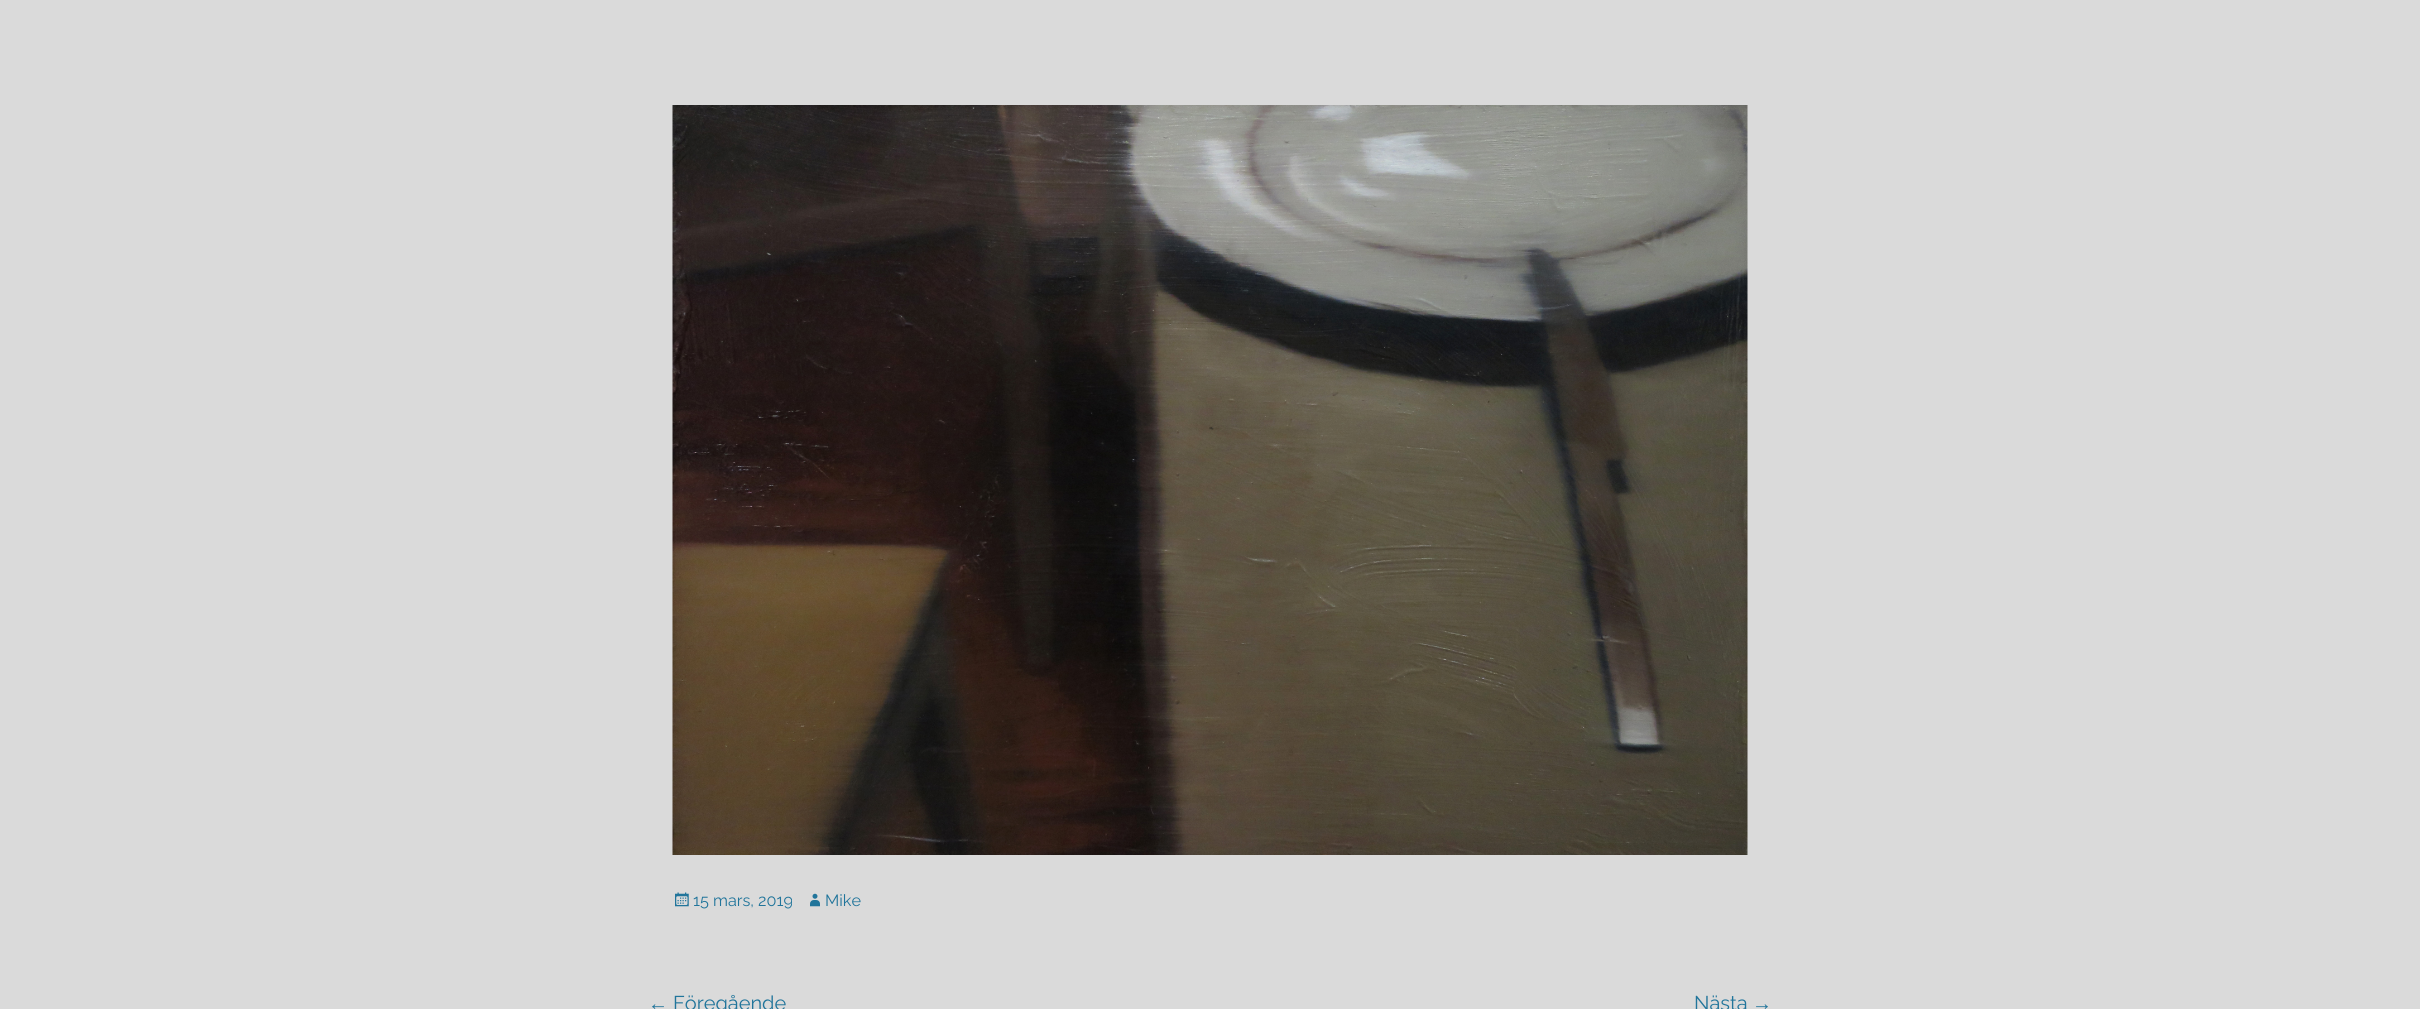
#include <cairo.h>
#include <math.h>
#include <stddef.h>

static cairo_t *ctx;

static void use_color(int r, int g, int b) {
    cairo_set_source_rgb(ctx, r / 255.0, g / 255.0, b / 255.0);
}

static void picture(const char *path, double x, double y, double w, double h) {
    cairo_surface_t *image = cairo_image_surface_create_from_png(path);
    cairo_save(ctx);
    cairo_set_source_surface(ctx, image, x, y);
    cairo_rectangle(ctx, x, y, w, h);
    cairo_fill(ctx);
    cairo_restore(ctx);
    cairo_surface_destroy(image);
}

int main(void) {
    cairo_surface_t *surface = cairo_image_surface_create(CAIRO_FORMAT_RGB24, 2420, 1009);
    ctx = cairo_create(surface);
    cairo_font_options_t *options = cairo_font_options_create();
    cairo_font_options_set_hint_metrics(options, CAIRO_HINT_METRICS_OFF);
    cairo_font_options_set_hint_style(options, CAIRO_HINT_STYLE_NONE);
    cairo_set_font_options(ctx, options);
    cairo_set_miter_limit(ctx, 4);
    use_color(218, 218, 218);
    cairo_paint(ctx);
    picture("img1.png", 672, 105, 1076, 750);
    picture("img2.png", 675, 892, 14, 15);
    cairo_select_font_face(ctx, "Raleway", CAIRO_FONT_SLANT_NORMAL, CAIRO_FONT_WEIGHT_NORMAL);
    cairo_set_font_size(ctx, 16.25);
    use_color(33, 117, 155);
    cairo_move_to(ctx, 693, 906);
    cairo_show_text(ctx, "15 mars, 2019");
    picture("img3.png", 810, 893, 10, 14);
    cairo_move_to(ctx, 825, 906);
    cairo_show_text(ctx, "Mike");
    cairo_select_font_face(ctx, "Liberation Serif", CAIRO_FONT_SLANT_NORMAL, CAIRO_FONT_WEIGHT_NORMAL);
    cairo_set_font_size(ctx, 20);
    cairo_move_to(ctx, 648, 1010);
    cairo_show_text(ctx, "←");
    cairo_select_font_face(ctx, "Raleway", CAIRO_FONT_SLANT_NORMAL, CAIRO_FONT_WEIGHT_NORMAL);
    cairo_move_to(ctx, 673, 1010);
    cairo_show_text(ctx, "Föregående");
    cairo_move_to(ctx, 1694, 1010);
    cairo_show_text(ctx, "Nästa");
    cairo_select_font_face(ctx, "Liberation Serif", CAIRO_FONT_SLANT_NORMAL, CAIRO_FONT_WEIGHT_NORMAL);
    cairo_move_to(ctx, 1752, 1010);
    cairo_show_text(ctx, "→");
    cairo_surface_write_to_png(surface, "result.png");
    cairo_font_options_destroy(options);
    cairo_destroy(ctx);
    cairo_surface_destroy(surface);
    return 0;
}
